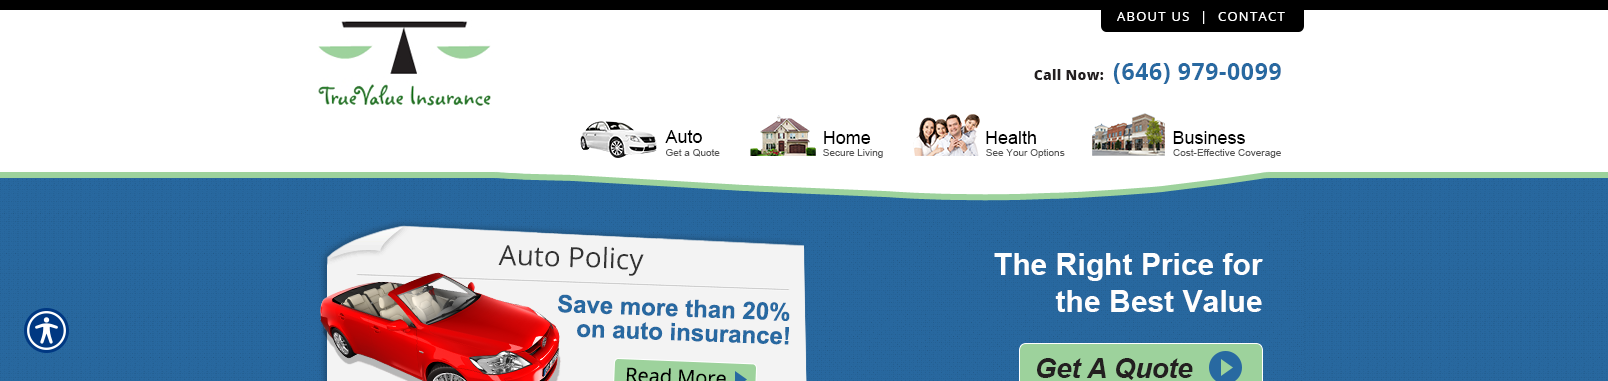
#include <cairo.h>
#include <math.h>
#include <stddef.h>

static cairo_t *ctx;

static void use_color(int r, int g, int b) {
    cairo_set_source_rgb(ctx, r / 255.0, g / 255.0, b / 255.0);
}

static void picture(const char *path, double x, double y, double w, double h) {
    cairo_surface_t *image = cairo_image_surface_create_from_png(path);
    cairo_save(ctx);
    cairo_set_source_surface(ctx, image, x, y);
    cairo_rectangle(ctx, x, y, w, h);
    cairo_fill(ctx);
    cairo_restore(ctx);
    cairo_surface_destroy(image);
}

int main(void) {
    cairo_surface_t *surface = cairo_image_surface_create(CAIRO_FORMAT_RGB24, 1608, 381);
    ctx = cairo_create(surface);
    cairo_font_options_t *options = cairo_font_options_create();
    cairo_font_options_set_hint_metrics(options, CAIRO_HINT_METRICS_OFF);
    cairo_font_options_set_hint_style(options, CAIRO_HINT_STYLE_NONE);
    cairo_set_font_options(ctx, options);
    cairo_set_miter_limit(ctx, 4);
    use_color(255, 255, 255);
    cairo_paint(ctx);
    picture("img1.png", 0, 0, 1608, 381);
    picture("img2.png", 24, 308, 45, 45);
    picture("img3.png", 318, 10, 986, 191);
    picture("img4.png", 305, 208, 999, 173);
    cairo_surface_write_to_png(surface, "result.png");
    cairo_font_options_destroy(options);
    cairo_destroy(ctx);
    cairo_surface_destroy(surface);
    return 0;
}
